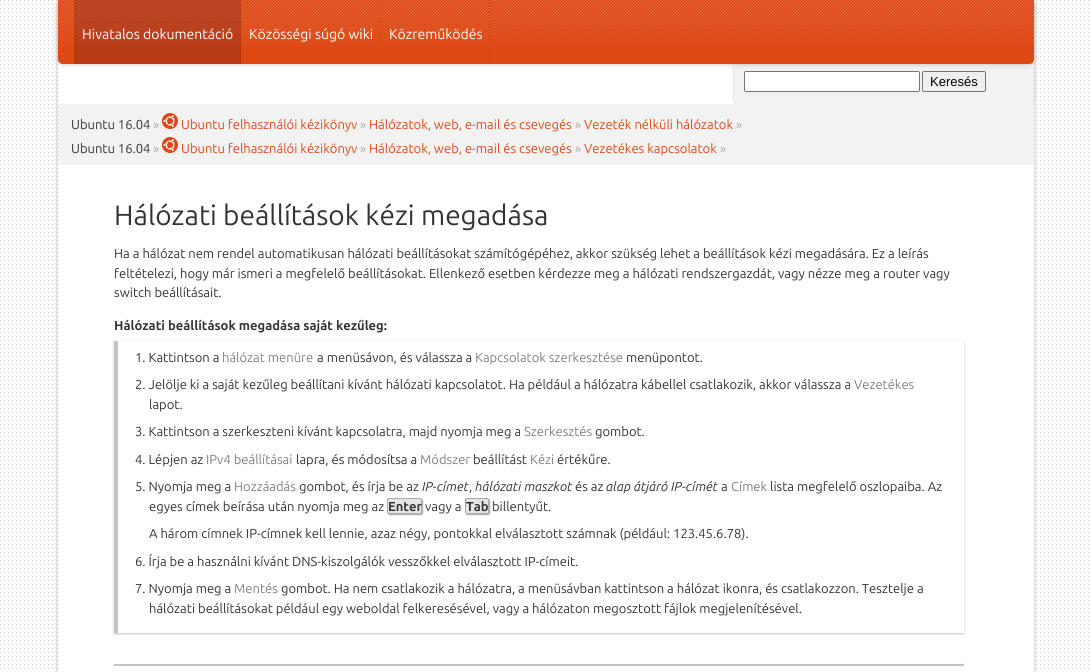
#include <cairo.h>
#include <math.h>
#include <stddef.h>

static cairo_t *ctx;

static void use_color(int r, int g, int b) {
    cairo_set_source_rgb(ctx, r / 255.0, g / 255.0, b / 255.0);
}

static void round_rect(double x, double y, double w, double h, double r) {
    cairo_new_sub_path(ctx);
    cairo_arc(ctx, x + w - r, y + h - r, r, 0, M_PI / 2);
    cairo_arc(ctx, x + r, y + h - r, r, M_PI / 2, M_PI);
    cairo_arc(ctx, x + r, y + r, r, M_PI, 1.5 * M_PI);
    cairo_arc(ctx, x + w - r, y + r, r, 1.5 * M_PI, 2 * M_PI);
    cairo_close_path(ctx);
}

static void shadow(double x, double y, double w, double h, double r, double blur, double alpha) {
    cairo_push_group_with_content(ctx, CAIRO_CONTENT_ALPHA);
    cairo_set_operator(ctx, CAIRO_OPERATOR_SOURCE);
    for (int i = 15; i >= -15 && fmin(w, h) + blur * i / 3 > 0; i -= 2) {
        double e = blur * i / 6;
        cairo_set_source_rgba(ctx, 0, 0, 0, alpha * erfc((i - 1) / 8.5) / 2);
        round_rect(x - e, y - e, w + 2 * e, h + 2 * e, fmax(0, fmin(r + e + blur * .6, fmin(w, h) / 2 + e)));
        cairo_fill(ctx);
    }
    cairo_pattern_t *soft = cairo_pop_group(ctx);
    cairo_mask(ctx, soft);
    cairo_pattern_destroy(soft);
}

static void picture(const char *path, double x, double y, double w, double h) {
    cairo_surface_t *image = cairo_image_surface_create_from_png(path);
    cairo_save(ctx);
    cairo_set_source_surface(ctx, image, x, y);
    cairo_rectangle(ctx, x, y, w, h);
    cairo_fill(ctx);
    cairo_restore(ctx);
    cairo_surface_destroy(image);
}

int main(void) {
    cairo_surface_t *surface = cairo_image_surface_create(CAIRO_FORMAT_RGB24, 1091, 672);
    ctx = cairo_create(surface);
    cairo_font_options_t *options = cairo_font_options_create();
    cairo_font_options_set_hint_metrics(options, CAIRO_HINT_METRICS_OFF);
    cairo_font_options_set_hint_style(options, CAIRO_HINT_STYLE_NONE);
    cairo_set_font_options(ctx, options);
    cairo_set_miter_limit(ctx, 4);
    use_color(255, 255, 255);
    cairo_paint(ctx);
    picture("img1.png", 0, 0, 1089, 669);
    use_color(187, 187, 187);
    shadow(58, 0, 976, 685, 5, 2.5, 1);
    use_color(255, 255, 255);
    cairo_rectangle(ctx, 58, 59, 976, 613);
    cairo_fill(ctx);
    use_color(187, 187, 187);
    shadow(734, 64, 300, 40, 4, 1, 1);
    use_color(242, 242, 242);
    cairo_new_path(ctx);
    cairo_move_to(ctx, 734, 64);
    cairo_line_to(ctx, 1034, 64);
    cairo_line_to(ctx, 1034, 100);
    cairo_curve_to(ctx, 1034, 102, 1032, 104, 1030, 104);
    cairo_line_to(ctx, 738, 104);
    cairo_curve_to(ctx, 736, 104, 734, 102, 734, 100);
    cairo_close_path(ctx);
    cairo_fill(ctx);
    use_color(255, 255, 255);
    round_rect(744.5, 71.5, 175, 20, 1.5);
    cairo_fill_preserve(ctx);
    use_color(118, 118, 118);
    cairo_set_line_width(ctx, 1);
    cairo_stroke(ctx);
    use_color(239, 239, 239);
    round_rect(922.5, 71.5, 63, 20, 1.5);
    cairo_fill_preserve(ctx);
    use_color(118, 118, 118);
    cairo_stroke(ctx);
    use_color(187, 187, 187);
    shadow(58, 0, 976, 64, 5, 2.5, 1);
    use_color(221, 72, 20);
    cairo_new_path(ctx);
    cairo_move_to(ctx, 58, 0);
    cairo_line_to(ctx, 1034, 0);
    cairo_line_to(ctx, 1034, 59);
    cairo_curve_to(ctx, 1034, 62, 1032, 64, 1029, 64);
    cairo_line_to(ctx, 63, 64);
    cairo_curve_to(ctx, 60, 64, 58, 62, 58, 59);
    cairo_close_path(ctx);
    cairo_fill(ctx);
    picture("img2.png", 58, 0, 976, 47);
    picture("img3.png", 74, 0, 2, 64);
    picture("img4.png", 240, 0, 1, 64);
    cairo_set_source_rgba(ctx, 0.157, 0.039, 0.118, 0.2);
    cairo_rectangle(ctx, 74, 0, 167, 64);
    cairo_fill(ctx);
    cairo_select_font_face(ctx, "Ubuntu", CAIRO_FONT_SLANT_NORMAL, CAIRO_FONT_WEIGHT_NORMAL);
    cairo_set_font_size(ctx, 14);
    use_color(255, 255, 255);
    cairo_move_to(ctx, 82, 39);
    cairo_show_text(ctx, "Hivatalos dokumentáció");
    picture("img4.png", 380, 0, 1, 64);
    cairo_move_to(ctx, 249, 39);
    cairo_show_text(ctx, "Közösségi súgó wiki");
    picture("img4.png", 489, 0, 1, 64);
    cairo_move_to(ctx, 389, 39);
    cairo_show_text(ctx, "Közreműködés");
    cairo_select_font_face(ctx, "Liberation Sans", CAIRO_FONT_SLANT_NORMAL, CAIRO_FONT_WEIGHT_NORMAL);
    cairo_set_font_size(ctx, 13);
    use_color(0, 0, 0);
    cairo_move_to(ctx, 930, 86);
    cairo_show_text(ctx, "Keresés");
    use_color(242, 242, 242);
    cairo_rectangle(ctx, 58, 104, 976, 61);
    cairo_fill(ctx);
    cairo_select_font_face(ctx, "Ubuntu", CAIRO_FONT_SLANT_NORMAL, CAIRO_FONT_WEIGHT_NORMAL);
    use_color(51, 51, 51);
    cairo_move_to(ctx, 71, 129);
    cairo_show_text(ctx, "Ubuntu 16.04");
    use_color(174, 167, 159);
    cairo_move_to(ctx, 153, 129);
    cairo_show_text(ctx, "»");
    picture("img5.png", 162, 113, 16, 16);
    use_color(221, 72, 20);
    cairo_move_to(ctx, 181, 129);
    cairo_show_text(ctx, "Ubuntu felhasználói kézikönyv");
    use_color(174, 167, 159);
    cairo_move_to(ctx, 360, 129);
    cairo_show_text(ctx, "»");
    use_color(221, 72, 20);
    cairo_move_to(ctx, 369, 129);
    cairo_show_text(ctx, "Hálózatok, web, e-mail és csevegés");
    use_color(174, 167, 159);
    cairo_move_to(ctx, 575, 129);
    cairo_show_text(ctx, "»");
    use_color(221, 72, 20);
    cairo_move_to(ctx, 584, 129);
    cairo_show_text(ctx, "Vezeték nélküli hálózatok");
    use_color(174, 167, 159);
    cairo_move_to(ctx, 736, 129);
    cairo_show_text(ctx, "»");
    use_color(51, 51, 51);
    cairo_move_to(ctx, 71, 153);
    cairo_show_text(ctx, "Ubuntu 16.04");
    use_color(174, 167, 159);
    cairo_move_to(ctx, 153, 153);
    cairo_show_text(ctx, "»");
    picture("img5.png", 162, 137, 16, 16);
    use_color(221, 72, 20);
    cairo_move_to(ctx, 181, 153);
    cairo_show_text(ctx, "Ubuntu felhasználói kézikönyv");
    use_color(174, 167, 159);
    cairo_move_to(ctx, 360, 153);
    cairo_show_text(ctx, "»");
    use_color(221, 72, 20);
    cairo_move_to(ctx, 369, 153);
    cairo_show_text(ctx, "Hálózatok, web, e-mail és csevegés");
    use_color(174, 167, 159);
    cairo_move_to(ctx, 575, 153);
    cairo_show_text(ctx, "»");
    use_color(221, 72, 20);
    cairo_move_to(ctx, 584, 153);
    cairo_show_text(ctx, "Vezetékes kapcsolatok");
    use_color(174, 167, 159);
    cairo_move_to(ctx, 720, 153);
    cairo_show_text(ctx, "»");
    cairo_set_font_size(ctx, 28);
    use_color(51, 51, 51);
    cairo_move_to(ctx, 114, 225);
    cairo_show_text(ctx, "Hálózati beállítások kézi megadása");
    cairo_set_font_size(ctx, 13);
    cairo_move_to(ctx, 114, 258);
    cairo_show_text(ctx, "Ha a hálózat nem rendel automatikusan hálózati beállításokat számítógépéhez, akkor szükség lehet a beállítások kézi megadására. Ez a leírás");
    cairo_move_to(ctx, 114, 278);
    cairo_show_text(ctx, "feltételezi, hogy már ismeri a megfelelő beállításokat. Ellenkező esetben kérdezze meg a hálózati rendszergazdát, vagy nézze meg a router vagy");
    cairo_move_to(ctx, 114, 297);
    cairo_show_text(ctx, "switch beállításait.");
    cairo_select_font_face(ctx, "Ubuntu", CAIRO_FONT_SLANT_NORMAL, CAIRO_FONT_WEIGHT_BOLD);
    cairo_move_to(ctx, 114, 330);
    cairo_show_text(ctx, "Hálózati beállítások megadása saját kezűleg:");
    cairo_save(ctx);
    cairo_set_fill_rule(ctx, CAIRO_FILL_RULE_EVEN_ODD);
    cairo_new_path(ctx);
    cairo_move_to(ctx, 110, 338);
    cairo_line_to(ctx, 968, 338);
    cairo_line_to(ctx, 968, 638);
    cairo_line_to(ctx, 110, 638);
    cairo_close_path(ctx);
    cairo_move_to(ctx, 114, 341);
    cairo_line_to(ctx, 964, 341);
    cairo_line_to(ctx, 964, 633);
    cairo_line_to(ctx, 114, 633);
    cairo_close_path(ctx);
    cairo_clip(ctx);
    use_color(204, 193, 193);
    shadow(114, 342, 850, 292, 0, 1, 1);
    cairo_restore(ctx);
    use_color(204, 193, 193);
    cairo_rectangle(ctx, 114, 341, 4, 292);
    cairo_fill(ctx);
    cairo_select_font_face(ctx, "Ubuntu", CAIRO_FONT_SLANT_NORMAL, CAIRO_FONT_WEIGHT_NORMAL);
    use_color(51, 51, 51);
    cairo_move_to(ctx, 135, 362);
    cairo_show_text(ctx, "1. Kattintson a");
    use_color(128, 128, 128);
    cairo_move_to(ctx, 222, 362);
    cairo_show_text(ctx, "hálózat menüre");
    use_color(51, 51, 51);
    cairo_move_to(ctx, 317, 362);
    cairo_show_text(ctx, "a menüsávon, és válassza a");
    use_color(128, 128, 128);
    cairo_move_to(ctx, 475, 362);
    cairo_show_text(ctx, "Kapcsolatok szerkesztése");
    use_color(51, 51, 51);
    cairo_move_to(ctx, 626, 362);
    cairo_show_text(ctx, "menüpontot.");
    cairo_move_to(ctx, 135, 389);
    cairo_show_text(ctx, "2. Jelölje ki a saját kezűleg beállítani kívánt hálózati kapcsolatot. Ha például a hálózatra kábellel csatlakozik, akkor válassza a");
    use_color(128, 128, 128);
    cairo_move_to(ctx, 854, 389);
    cairo_show_text(ctx, "Vezetékes");
    use_color(51, 51, 51);
    cairo_move_to(ctx, 149, 409);
    cairo_show_text(ctx, "lapot.");
    cairo_move_to(ctx, 135, 436);
    cairo_show_text(ctx, "3. Kattintson a szerkeszteni kívánt kapcsolatra, majd nyomja meg a");
    use_color(128, 128, 128);
    cairo_move_to(ctx, 524, 436);
    cairo_show_text(ctx, "Szerkesztés");
    use_color(51, 51, 51);
    cairo_move_to(ctx, 595, 436);
    cairo_show_text(ctx, "gombot.");
    cairo_move_to(ctx, 135, 464);
    cairo_show_text(ctx, "4. Lépjen az");
    use_color(128, 128, 128);
    cairo_move_to(ctx, 206, 464);
    cairo_show_text(ctx, "IPv4 beállításai");
    use_color(51, 51, 51);
    cairo_move_to(ctx, 296, 464);
    cairo_show_text(ctx, "lapra, és módosítsa a");
    use_color(128, 128, 128);
    cairo_move_to(ctx, 420, 464);
    cairo_show_text(ctx, "Módszer");
    use_color(51, 51, 51);
    cairo_move_to(ctx, 473, 464);
    cairo_show_text(ctx, "beállítást");
    use_color(128, 128, 128);
    cairo_move_to(ctx, 530, 464);
    cairo_show_text(ctx, "Kézi");
    use_color(51, 51, 51);
    cairo_move_to(ctx, 557, 464);
    cairo_show_text(ctx, "értékűre.");
    use_color(128, 128, 128);
    cairo_move_to(ctx, 234, 491);
    cairo_show_text(ctx, "Hozzáadás");
    use_color(51, 51, 51);
    cairo_move_to(ctx, 299, 491);
    cairo_show_text(ctx, "gombot, és írja be az");
    cairo_select_font_face(ctx, "Ubuntu", CAIRO_FONT_SLANT_ITALIC, CAIRO_FONT_WEIGHT_NORMAL);
    cairo_move_to(ctx, 422, 491);
    cairo_show_text(ctx, "IP-címet");
    cairo_select_font_face(ctx, "Ubuntu", CAIRO_FONT_SLANT_NORMAL, CAIRO_FONT_WEIGHT_NORMAL);
    cairo_move_to(ctx, 469, 491);
    cairo_show_text(ctx, ",");
    cairo_select_font_face(ctx, "Ubuntu", CAIRO_FONT_SLANT_ITALIC, CAIRO_FONT_WEIGHT_NORMAL);
    cairo_move_to(ctx, 475, 491);
    cairo_show_text(ctx, "hálózati maszkot");
    cairo_select_font_face(ctx, "Ubuntu", CAIRO_FONT_SLANT_NORMAL, CAIRO_FONT_WEIGHT_NORMAL);
    cairo_move_to(ctx, 575, 491);
    cairo_show_text(ctx, "és az");
    cairo_select_font_face(ctx, "Ubuntu", CAIRO_FONT_SLANT_ITALIC, CAIRO_FONT_WEIGHT_NORMAL);
    cairo_move_to(ctx, 606, 491);
    cairo_show_text(ctx, "alap átjáró IP-címét");
    cairo_select_font_face(ctx, "Ubuntu", CAIRO_FONT_SLANT_NORMAL, CAIRO_FONT_WEIGHT_NORMAL);
    cairo_move_to(ctx, 721, 491);
    cairo_show_text(ctx, "a");
    use_color(128, 128, 128);
    cairo_move_to(ctx, 731, 491);
    cairo_show_text(ctx, "Címek");
    use_color(51, 51, 51);
    cairo_move_to(ctx, 770, 491);
    cairo_show_text(ctx, "lista megfelelő oszlopaiba. Az");
    cairo_move_to(ctx, 149, 511);
    cairo_show_text(ctx, "egyes címek beírása után nyomja meg az");
    use_color(170, 170, 170);
    shadow(388, 499, 35, 16, 2, 0.5, 1);
    use_color(229, 229, 229);
    round_rect(387.5, 498.5, 34, 15, 1.5);
    cairo_fill_preserve(ctx);
    use_color(170, 170, 170);
    cairo_stroke(ctx);
    cairo_select_font_face(ctx, "Ubuntu", CAIRO_FONT_SLANT_NORMAL, CAIRO_FONT_WEIGHT_BOLD);
    use_color(51, 51, 51);
    cairo_move_to(ctx, 388, 511);
    cairo_show_text(ctx, "Enter");
    cairo_select_font_face(ctx, "Ubuntu", CAIRO_FONT_SLANT_NORMAL, CAIRO_FONT_WEIGHT_NORMAL);
    cairo_move_to(ctx, 425, 511);
    cairo_show_text(ctx, "vagy a");
    use_color(170, 170, 170);
    shadow(466, 499, 24, 16, 2, 0.5, 1);
    use_color(229, 229, 229);
    round_rect(465.5, 498.5, 23, 15, 1.5);
    cairo_fill_preserve(ctx);
    use_color(170, 170, 170);
    cairo_stroke(ctx);
    cairo_select_font_face(ctx, "Ubuntu", CAIRO_FONT_SLANT_NORMAL, CAIRO_FONT_WEIGHT_BOLD);
    use_color(51, 51, 51);
    cairo_move_to(ctx, 466, 511);
    cairo_show_text(ctx, "Tab");
    cairo_select_font_face(ctx, "Ubuntu", CAIRO_FONT_SLANT_NORMAL, CAIRO_FONT_WEIGHT_NORMAL);
    cairo_move_to(ctx, 492, 511);
    cairo_show_text(ctx, "billentyűt.");
    cairo_move_to(ctx, 135, 491);
    cairo_show_text(ctx, "5. Nyomja meg a");
    cairo_move_to(ctx, 149, 538);
    cairo_show_text(ctx, "A három címnek IP-címnek kell lennie, azaz négy, pontokkal elválasztott számnak (például: 123.45.6.78).");
    cairo_move_to(ctx, 135, 566);
    cairo_show_text(ctx, "6. Írja be a használni kívánt DNS-kiszolgálók vesszőkkel elválasztott IP-címeit.");
    use_color(128, 128, 128);
    cairo_move_to(ctx, 234, 593);
    cairo_show_text(ctx, "Mentés");
    use_color(51, 51, 51);
    cairo_move_to(ctx, 281, 593);
    cairo_show_text(ctx, "gombot. Ha nem csatlakozik a hálózatra, a menüsávban kattintson a hálózat ikonra, és csatlakozzon. Tesztelje a");
    cairo_move_to(ctx, 149, 613);
    cairo_show_text(ctx, "hálózati beállításokat például egy weboldal felkeresésével, vagy a hálózaton megosztott fájlok megjelenítésével.");
    cairo_move_to(ctx, 135, 593);
    cairo_show_text(ctx, "7. Nyomja meg a");
    use_color(204, 193, 193);
    cairo_rectangle(ctx, 114, 664, 850, 2);
    cairo_fill(ctx);
    cairo_surface_write_to_png(surface, "result.png");
    cairo_font_options_destroy(options);
    cairo_destroy(ctx);
    cairo_surface_destroy(surface);
    return 0;
}
